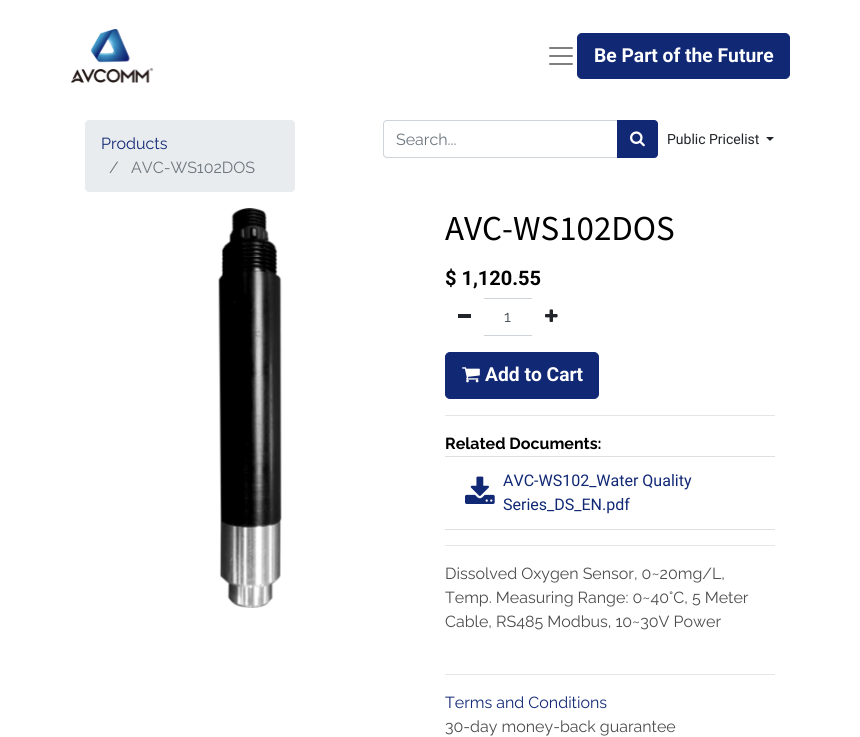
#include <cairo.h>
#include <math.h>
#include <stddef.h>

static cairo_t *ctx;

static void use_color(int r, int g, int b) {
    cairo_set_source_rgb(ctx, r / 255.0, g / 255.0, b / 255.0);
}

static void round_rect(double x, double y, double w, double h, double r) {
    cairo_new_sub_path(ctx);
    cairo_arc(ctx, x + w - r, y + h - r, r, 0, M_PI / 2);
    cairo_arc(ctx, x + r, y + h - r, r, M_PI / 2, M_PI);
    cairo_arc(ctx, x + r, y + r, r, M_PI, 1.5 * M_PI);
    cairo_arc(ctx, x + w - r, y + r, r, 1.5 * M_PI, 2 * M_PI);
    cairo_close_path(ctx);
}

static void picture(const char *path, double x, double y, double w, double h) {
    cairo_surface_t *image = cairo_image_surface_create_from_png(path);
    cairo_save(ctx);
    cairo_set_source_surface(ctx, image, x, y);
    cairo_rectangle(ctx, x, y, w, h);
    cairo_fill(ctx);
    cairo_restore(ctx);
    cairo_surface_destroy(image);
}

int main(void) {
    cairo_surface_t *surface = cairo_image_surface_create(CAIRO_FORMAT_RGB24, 860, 737);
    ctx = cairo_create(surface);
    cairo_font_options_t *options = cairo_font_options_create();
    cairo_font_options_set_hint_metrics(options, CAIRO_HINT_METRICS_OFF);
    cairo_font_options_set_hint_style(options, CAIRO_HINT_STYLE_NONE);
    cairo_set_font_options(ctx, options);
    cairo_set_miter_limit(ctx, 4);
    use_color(255, 255, 255);
    cairo_paint(ctx);
    picture("img1.png", 71, 29, 83, 54);
    picture("img2.png", 549, 47, 24, 18);
    use_color(17, 40, 117);
    round_rect(577.5, 33.5, 212, 45, 4.5);
    cairo_fill_preserve(ctx);
    cairo_set_line_width(ctx, 1);
    cairo_stroke(ctx);
    cairo_select_font_face(ctx, "Roboto", CAIRO_FONT_SLANT_NORMAL, CAIRO_FONT_WEIGHT_BOLD);
    cairo_set_font_size(ctx, 19.25);
    use_color(255, 255, 255);
    cairo_move_to(ctx, 594, 62);
    cairo_show_text(ctx, "Be Part of the Future");
    use_color(233, 236, 239);
    round_rect(85, 120, 210, 72, 4);
    cairo_fill(ctx);
    cairo_select_font_face(ctx, "Raleway", CAIRO_FONT_SLANT_NORMAL, CAIRO_FONT_WEIGHT_NORMAL);
    cairo_set_font_size(ctx, 16);
    use_color(17, 40, 117);
    cairo_move_to(ctx, 101, 149);
    cairo_show_text(ctx, "Products");
    use_color(108, 117, 125);
    cairo_move_to(ctx, 109, 173);
    cairo_show_text(ctx, "/");
    cairo_move_to(ctx, 131, 173);
    cairo_show_text(ctx, "AVC-WS102DOS");
    cairo_new_path(ctx);
    cairo_move_to(ctx, 387, 120.5);
    cairo_line_to(ctx, 617.5, 120.5);
    cairo_line_to(ctx, 617.5, 157.5);
    cairo_line_to(ctx, 387, 157.5);
    cairo_curve_to(ctx, 385, 157.5, 383.5, 156, 383.5, 154);
    cairo_line_to(ctx, 383.5, 124);
    cairo_curve_to(ctx, 383.5, 122, 385, 120.5, 387, 120.5);
    cairo_close_path(ctx);
    use_color(206, 212, 218);
    cairo_stroke(ctx);
    use_color(108, 117, 125);
    cairo_move_to(ctx, 396, 145);
    cairo_show_text(ctx, "Search...");
    use_color(17, 40, 117);
    cairo_new_path(ctx);
    cairo_move_to(ctx, 617.5, 120.5);
    cairo_line_to(ctx, 654, 120.5);
    cairo_curve_to(ctx, 656, 120.5, 657.5, 122, 657.5, 124);
    cairo_line_to(ctx, 657.5, 154);
    cairo_curve_to(ctx, 657.5, 156, 656, 157.5, 654, 157.5);
    cairo_line_to(ctx, 617.5, 157.5);
    cairo_close_path(ctx);
    cairo_fill_preserve(ctx);
    cairo_stroke(ctx);
    picture("img3.png", 630, 131, 15, 16);
    cairo_select_font_face(ctx, "Roboto", CAIRO_FONT_SLANT_NORMAL, CAIRO_FONT_WEIGHT_NORMAL);
    cairo_set_font_size(ctx, 14);
    use_color(33, 37, 41);
    cairo_move_to(ctx, 667, 144);
    cairo_show_text(ctx, "Public Pricelist");
    cairo_new_path(ctx);
    cairo_move_to(ctx, 766, 137);
    cairo_line_to(ctx, 774, 137);
    cairo_line_to(ctx, 770, 141);
    cairo_close_path(ctx);
    cairo_fill(ctx);
    picture("img4.png", 218, 208, 64, 400);
    cairo_select_font_face(ctx, "Source Sans Pro", CAIRO_FONT_SLANT_NORMAL, CAIRO_FONT_WEIGHT_NORMAL);
    cairo_set_font_size(ctx, 35);
    use_color(0, 0, 0);
    cairo_move_to(ctx, 445, 240);
    cairo_show_text(ctx, "AVC-WS102DOS");
    cairo_select_font_face(ctx, "Roboto", CAIRO_FONT_SLANT_NORMAL, CAIRO_FONT_WEIGHT_BOLD);
    cairo_set_font_size(ctx, 20);
    cairo_move_to(ctx, 445, 285);
    cairo_show_text(ctx, "$ 1,120.55");
    cairo_rectangle(ctx, 483.5, 298.5, 49, 37);
    use_color(206, 212, 218);
    cairo_stroke(ctx);
    use_color(255, 255, 255);
    cairo_new_path(ctx);
    cairo_move_to(ctx, 449, 298);
    cairo_line_to(ctx, 484, 298);
    cairo_line_to(ctx, 484, 336);
    cairo_line_to(ctx, 449, 336);
    cairo_curve_to(ctx, 447, 336, 445, 334, 445, 332);
    cairo_line_to(ctx, 445, 302);
    cairo_curve_to(ctx, 445, 300, 447, 298, 449, 298);
    cairo_close_path(ctx);
    cairo_fill(ctx);
    use_color(33, 37, 41);
    cairo_rectangle(ctx, 458, 314, 13, 4);
    cairo_fill(ctx);
    cairo_select_font_face(ctx, "Raleway", CAIRO_FONT_SLANT_NORMAL, CAIRO_FONT_WEIGHT_NORMAL);
    cairo_set_font_size(ctx, 16);
    use_color(73, 80, 87);
    cairo_move_to(ctx, 504, 322);
    cairo_show_text(ctx, "1");
    use_color(255, 255, 255);
    cairo_new_path(ctx);
    cairo_move_to(ctx, 532, 298);
    cairo_line_to(ctx, 566, 298);
    cairo_curve_to(ctx, 568, 298, 570, 300, 570, 302);
    cairo_line_to(ctx, 570, 332);
    cairo_curve_to(ctx, 570, 334, 568, 336, 566, 336);
    cairo_line_to(ctx, 532, 336);
    cairo_close_path(ctx);
    cairo_fill(ctx);
    picture("img5.png", 545, 309, 13, 13);
    use_color(17, 40, 117);
    round_rect(445.5, 352.5, 153, 46, 4.5);
    cairo_fill_preserve(ctx);
    cairo_stroke(ctx);
    picture("img6.png", 462, 367, 18, 16);
    cairo_select_font_face(ctx, "Roboto", CAIRO_FONT_SLANT_NORMAL, CAIRO_FONT_WEIGHT_BOLD);
    cairo_set_font_size(ctx, 19.25);
    use_color(255, 255, 255);
    cairo_move_to(ctx, 485, 381);
    cairo_show_text(ctx, "Add to Cart");
    use_color(230, 230, 230);
    cairo_rectangle(ctx, 445, 415, 330, 1);
    cairo_fill(ctx);
    cairo_select_font_face(ctx, "Raleway", CAIRO_FONT_SLANT_NORMAL, CAIRO_FONT_WEIGHT_BOLD);
    cairo_set_font_size(ctx, 16);
    use_color(0, 0, 0);
    cairo_move_to(ctx, 445, 449);
    cairo_show_text(ctx, "Related Documents:");
    use_color(223, 223, 223);
    cairo_rectangle(ctx, 445, 456, 330, 1);
    cairo_fill(ctx);
    cairo_rectangle(ctx, 445, 529, 330, 1);
    cairo_fill(ctx);
    picture("img7.png", 465, 476, 30, 28);
    cairo_select_font_face(ctx, "Roboto", CAIRO_FONT_SLANT_NORMAL, CAIRO_FONT_WEIGHT_NORMAL);
    use_color(17, 40, 117);
    cairo_move_to(ctx, 503, 486);
    cairo_show_text(ctx, "AVC-WS102_Water Quality");
    cairo_move_to(ctx, 503, 510);
    cairo_show_text(ctx, "Series_DS_EN.pdf");
    use_color(230, 230, 230);
    cairo_rectangle(ctx, 445, 545, 330, 1);
    cairo_fill(ctx);
    cairo_select_font_face(ctx, "Raleway", CAIRO_FONT_SLANT_NORMAL, CAIRO_FONT_WEIGHT_NORMAL);
    use_color(77, 77, 77);
    cairo_move_to(ctx, 445, 579);
    cairo_show_text(ctx, "Dissolved Oxygen Sensor, 0~20mg/L,");
    cairo_move_to(ctx, 445, 603);
    cairo_show_text(ctx, "Temp. Measuring Range: 0~40°C, 5 Meter");
    cairo_move_to(ctx, 445, 627);
    cairo_show_text(ctx, "Cable, RS485 Modbus, 10~30V Power");
    use_color(230, 230, 230);
    cairo_rectangle(ctx, 445, 674, 330, 1);
    cairo_fill(ctx);
    use_color(17, 40, 117);
    cairo_move_to(ctx, 445, 708);
    cairo_show_text(ctx, "Terms and Conditions");
    use_color(77, 77, 77);
    cairo_move_to(ctx, 445, 732);
    cairo_show_text(ctx, "30-day money-back guarantee");
    cairo_surface_write_to_png(surface, "result.png");
    cairo_font_options_destroy(options);
    cairo_destroy(ctx);
    cairo_surface_destroy(surface);
    return 0;
}
